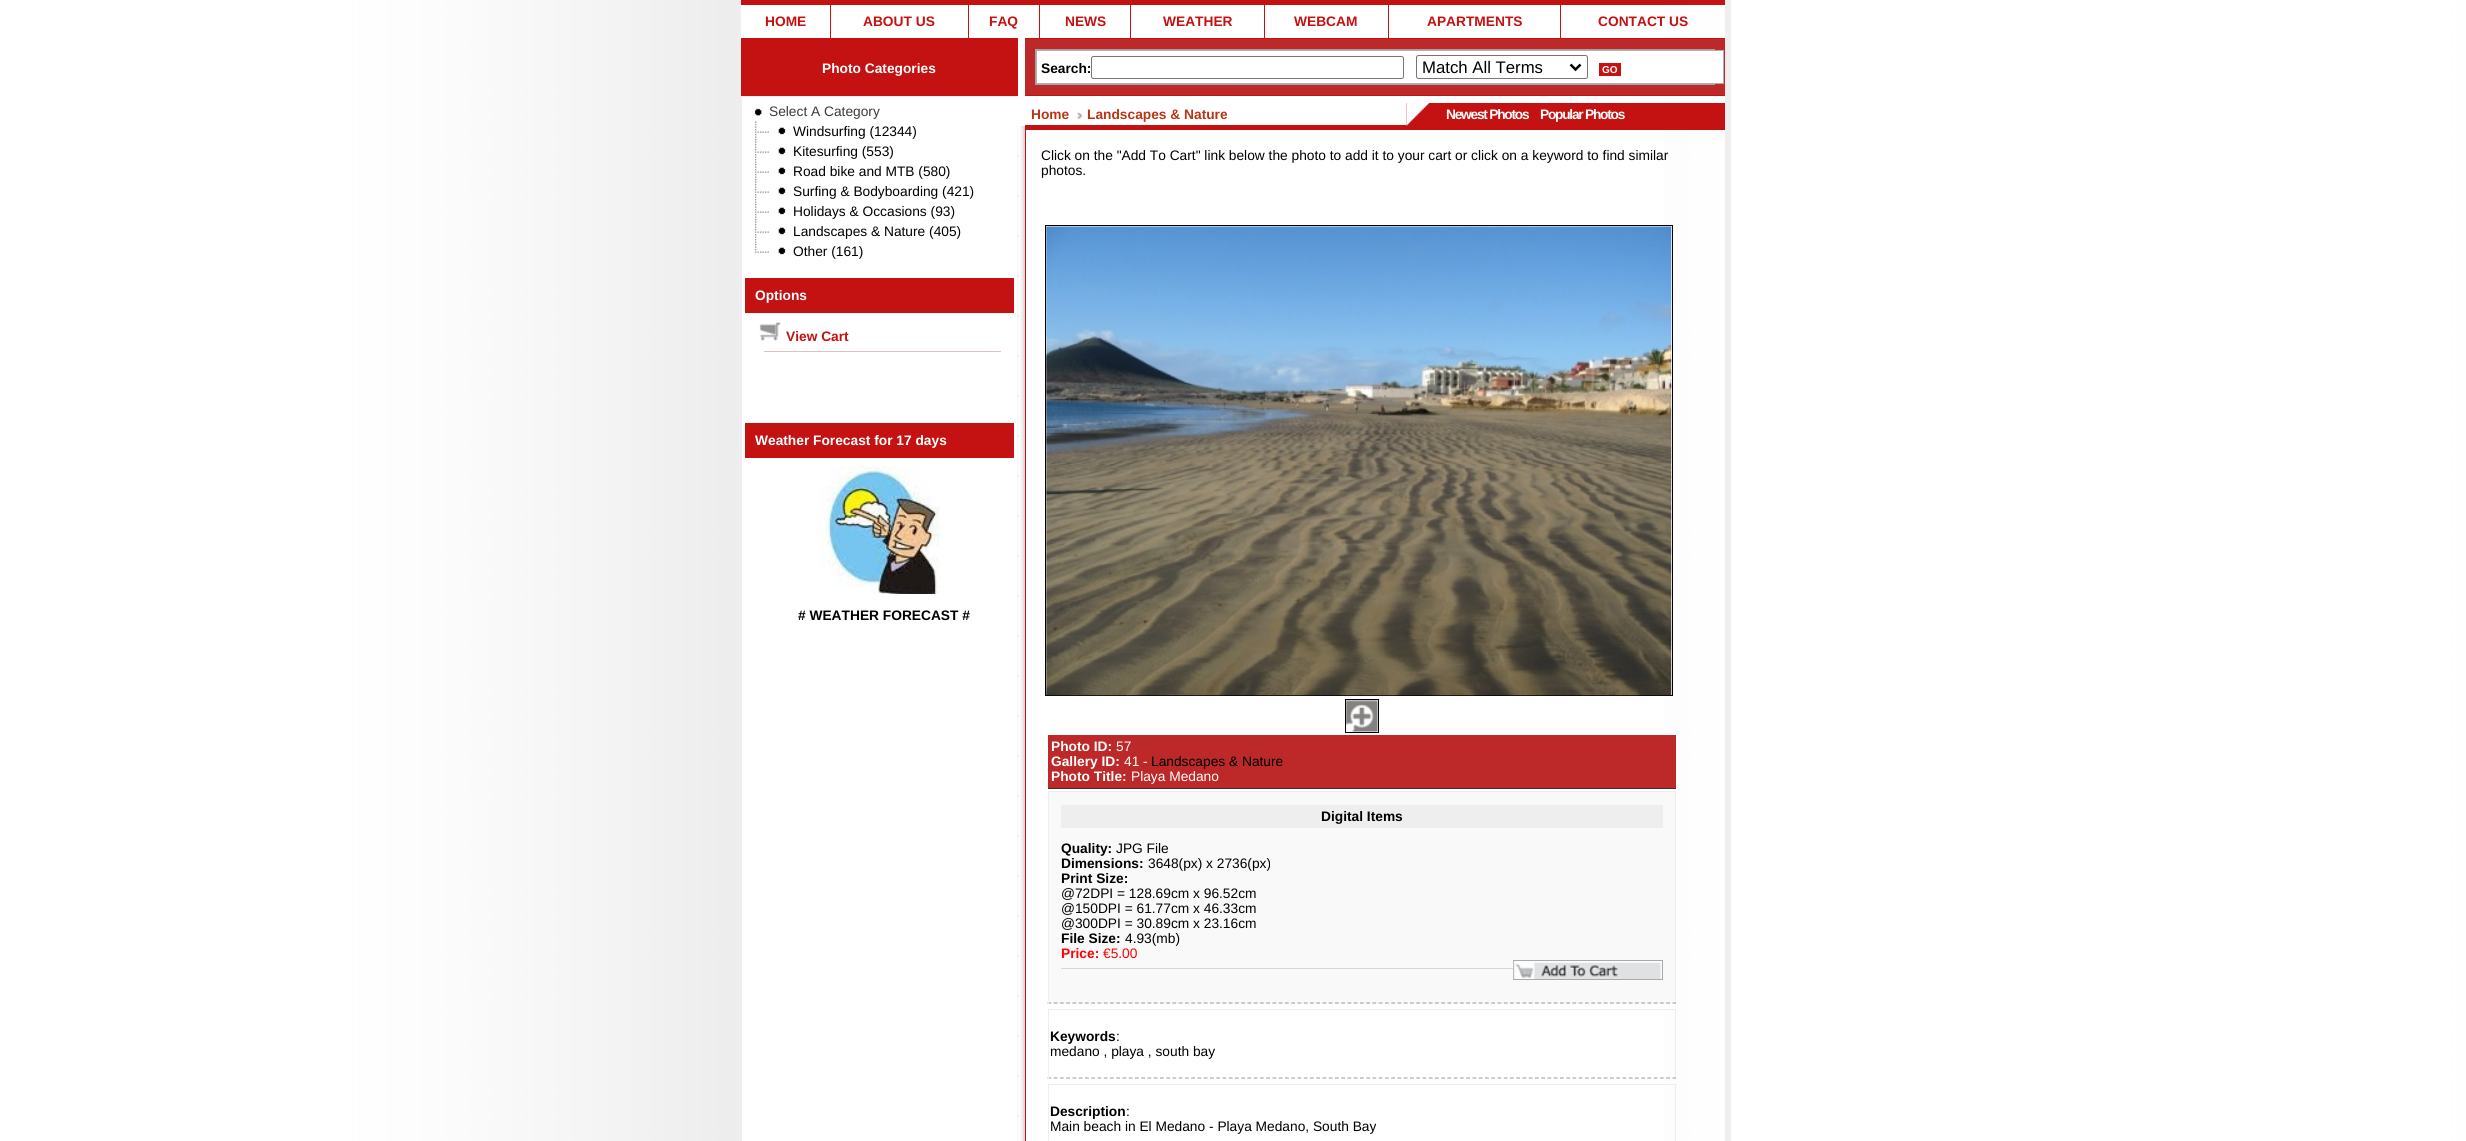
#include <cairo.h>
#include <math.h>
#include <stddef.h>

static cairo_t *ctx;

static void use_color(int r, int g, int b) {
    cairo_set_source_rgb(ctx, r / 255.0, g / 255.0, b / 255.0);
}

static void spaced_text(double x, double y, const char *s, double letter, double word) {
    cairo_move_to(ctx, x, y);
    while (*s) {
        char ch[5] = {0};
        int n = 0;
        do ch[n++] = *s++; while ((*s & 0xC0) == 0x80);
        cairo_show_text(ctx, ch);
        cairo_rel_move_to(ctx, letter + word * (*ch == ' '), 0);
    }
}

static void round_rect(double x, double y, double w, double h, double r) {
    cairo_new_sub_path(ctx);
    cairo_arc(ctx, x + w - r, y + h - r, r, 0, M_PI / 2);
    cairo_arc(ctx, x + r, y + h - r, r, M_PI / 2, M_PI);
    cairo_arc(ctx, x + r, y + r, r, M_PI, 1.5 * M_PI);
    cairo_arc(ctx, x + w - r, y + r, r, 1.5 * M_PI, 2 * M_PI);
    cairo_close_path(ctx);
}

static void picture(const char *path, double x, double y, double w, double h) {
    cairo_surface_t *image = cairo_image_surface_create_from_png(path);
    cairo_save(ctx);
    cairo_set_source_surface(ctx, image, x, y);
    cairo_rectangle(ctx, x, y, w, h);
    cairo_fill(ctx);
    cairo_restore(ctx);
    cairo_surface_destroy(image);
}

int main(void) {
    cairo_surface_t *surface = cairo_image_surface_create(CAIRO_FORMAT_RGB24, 2466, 1141);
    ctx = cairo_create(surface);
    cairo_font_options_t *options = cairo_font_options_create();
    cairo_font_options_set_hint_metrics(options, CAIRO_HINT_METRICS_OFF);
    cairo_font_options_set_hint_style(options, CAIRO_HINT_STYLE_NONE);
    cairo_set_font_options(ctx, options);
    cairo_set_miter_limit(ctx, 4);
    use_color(255, 255, 255);
    cairo_paint(ctx);
    picture("img1.png", 0, 0, 2466, 1141);
    use_color(255, 255, 255);
    cairo_rectangle(ctx, 741, 5, 923, 1136);
    cairo_fill(ctx);
    cairo_rectangle(ctx, 738, -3, 990, 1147);
    use_color(238, 238, 238);
    cairo_set_line_width(ctx, 6);
    cairo_stroke(ctx);
    use_color(196, 17, 17);
    cairo_rectangle(ctx, 741, 0, 984, 5);
    cairo_fill(ctx);
    cairo_select_font_face(ctx, "Liberation Sans", CAIRO_FONT_SLANT_NORMAL, CAIRO_FONT_WEIGHT_BOLD);
    cairo_set_font_size(ctx, 13.75);
    cairo_move_to(ctx, 765, 26);
    cairo_show_text(ctx, "HOME");
    cairo_rectangle(ctx, 830, 0, 1, 38);
    cairo_fill(ctx);
    cairo_move_to(ctx, 863, 26);
    cairo_show_text(ctx, "ABOUT US");
    cairo_rectangle(ctx, 968, 0, 1, 38);
    cairo_fill(ctx);
    cairo_move_to(ctx, 989, 26);
    cairo_show_text(ctx, "FAQ");
    cairo_rectangle(ctx, 1039, 0, 1, 38);
    cairo_fill(ctx);
    cairo_move_to(ctx, 1065, 26);
    cairo_show_text(ctx, "NEWS");
    cairo_rectangle(ctx, 1130, 0, 1, 38);
    cairo_fill(ctx);
    cairo_move_to(ctx, 1163, 26);
    cairo_show_text(ctx, "WEATHER");
    cairo_rectangle(ctx, 1264, 0, 1, 38);
    cairo_fill(ctx);
    cairo_move_to(ctx, 1294, 26);
    cairo_show_text(ctx, "WEBCAM");
    cairo_rectangle(ctx, 1388, 0, 1, 38);
    cairo_fill(ctx);
    cairo_move_to(ctx, 1427, 26);
    cairo_show_text(ctx, "APARTMENTS");
    cairo_rectangle(ctx, 1560, 0, 1, 38);
    cairo_fill(ctx);
    cairo_move_to(ctx, 1598, 26);
    cairo_show_text(ctx, "CONTACT US");
    cairo_rectangle(ctx, 741, 38, 277, 58);
    cairo_fill(ctx);
    use_color(255, 255, 255);
    cairo_move_to(ctx, 822, 73);
    cairo_show_text(ctx, "Photo Categories");
    use_color(189, 40, 40);
    cairo_rectangle(ctx, 1025, 39, 700, 56);
    cairo_fill(ctx);
    use_color(196, 17, 17);
    cairo_rectangle(ctx, 1025, 38, 700, 1);
    cairo_fill(ctx);
    cairo_rectangle(ctx, 1025, 95, 700, 1);
    cairo_fill(ctx);
    use_color(164, 164, 164);
    cairo_rectangle(ctx, 1035, 49, 680, 36);
    cairo_fill(ctx);
    use_color(255, 255, 255);
    cairo_rectangle(ctx, 1036.5, 50.5, 687, 33);
    cairo_fill_preserve(ctx);
    use_color(175, 175, 175);
    cairo_set_line_width(ctx, 1);
    cairo_stroke(ctx);
    use_color(0, 0, 0);
    cairo_move_to(ctx, 1041, 73);
    cairo_show_text(ctx, "Search:");
    round_rect(1091.5, 56.5, 312, 22, 2);
    use_color(118, 118, 118);
    cairo_stroke(ctx);
    round_rect(1416.5, 55.5, 171, 23, 2);
    cairo_stroke(ctx);
    cairo_new_path(ctx);
    cairo_move_to(ctx, 1570.5, 64.5);
    cairo_line_to(ctx, 1575.5, 69.5);
    cairo_line_to(ctx, 1580.5, 64.5);
    use_color(0, 0, 0);
    cairo_set_line_width(ctx, 2.5);
    cairo_stroke(ctx);
    cairo_select_font_face(ctx, "Liberation Sans", CAIRO_FONT_SLANT_NORMAL, CAIRO_FONT_WEIGHT_NORMAL);
    cairo_set_font_size(ctx, 16.75);
    cairo_move_to(ctx, 1422, 73);
    cairo_show_text(ctx, "Match All Terms");
    use_color(196, 17, 17);
    cairo_rectangle(ctx, 1599, 63, 22, 13);
    cairo_fill(ctx);
    cairo_select_font_face(ctx, "Liberation Sans", CAIRO_FONT_SLANT_NORMAL, CAIRO_FONT_WEIGHT_BOLD);
    cairo_set_font_size(ctx, 10);
    use_color(255, 255, 255);
    cairo_move_to(ctx, 1602, 73);
    cairo_show_text(ctx, "GO");
    cairo_rectangle(ctx, 741.5, 96.5, 276, 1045);
    use_color(238, 238, 238);
    cairo_set_line_width(ctx, 1);
    cairo_stroke(ctx);
    picture("img2.png", 754, 108, 8, 8);
    cairo_select_font_face(ctx, "Liberation Sans", CAIRO_FONT_SLANT_NORMAL, CAIRO_FONT_WEIGHT_NORMAL);
    cairo_set_font_size(ctx, 13.75);
    use_color(58, 58, 58);
    cairo_move_to(ctx, 769, 116);
    cairo_show_text(ctx, "Select A Category");
    picture("img3.png", 754, 121, 15, 20);
    picture("img4.png", 778, 127, 8, 8);
    use_color(0, 0, 0);
    cairo_move_to(ctx, 793, 136);
    cairo_show_text(ctx, "Windsurfing (12344)");
    picture("img3.png", 754, 141, 15, 20);
    picture("img4.png", 778, 147, 8, 8);
    cairo_move_to(ctx, 793, 156);
    cairo_show_text(ctx, "Kitesurfing (553)");
    picture("img3.png", 754, 161, 15, 20);
    picture("img4.png", 778, 167, 8, 8);
    cairo_move_to(ctx, 793, 176);
    cairo_show_text(ctx, "Road bike and MTB (580)");
    picture("img3.png", 754, 181, 15, 20);
    picture("img4.png", 778, 187, 8, 8);
    cairo_move_to(ctx, 793, 196);
    cairo_show_text(ctx, "Surfing & Bodyboarding (421)");
    picture("img3.png", 754, 201, 15, 20);
    picture("img4.png", 778, 207, 8, 8);
    cairo_move_to(ctx, 793, 216);
    cairo_show_text(ctx, "Holidays & Occasions (93)");
    picture("img3.png", 754, 221, 15, 20);
    picture("img4.png", 778, 227, 8, 8);
    cairo_move_to(ctx, 793, 236);
    cairo_show_text(ctx, "Landscapes & Nature (405)");
    picture("img5.png", 754, 241, 15, 12);
    picture("img4.png", 778, 247, 8, 8);
    cairo_move_to(ctx, 793, 256);
    cairo_show_text(ctx, "Other (161)");
    use_color(196, 17, 17);
    cairo_rectangle(ctx, 745, 278, 269, 35);
    cairo_fill(ctx);
    cairo_select_font_face(ctx, "Liberation Sans", CAIRO_FONT_SLANT_NORMAL, CAIRO_FONT_WEIGHT_BOLD);
    use_color(255, 255, 255);
    cairo_move_to(ctx, 755, 300);
    cairo_show_text(ctx, "Options");
    picture("img6.png", 759, 322, 22, 19);
    use_color(196, 17, 17);
    cairo_move_to(ctx, 786, 341);
    cairo_show_text(ctx, "View Cart");
    use_color(220, 193, 190);
    cairo_rectangle(ctx, 764, 351, 237, 1);
    cairo_fill(ctx);
    use_color(196, 17, 17);
    cairo_rectangle(ctx, 745, 423, 269, 35);
    cairo_fill(ctx);
    use_color(255, 255, 255);
    cairo_move_to(ctx, 755, 445);
    cairo_show_text(ctx, "Weather Forecast for 17 days");
    picture("img7.png", 818, 466, 125, 128);
    use_color(0, 0, 0);
    cairo_move_to(ctx, 798, 620);
    cairo_show_text(ctx, "# WEATHER FORECAST #");
    picture("img8.png", 1017, 126, 8, 1015);
    use_color(255, 255, 255);
    cairo_rectangle(ctx, 1017, 96, 1, 30);
    cairo_fill(ctx);
    use_color(187, 52, 21);
    cairo_move_to(ctx, 1031, 119);
    cairo_show_text(ctx, "Home");
    picture("img9.png", 1077, 112, 6, 7);
    cairo_move_to(ctx, 1087, 119);
    cairo_show_text(ctx, "Landscapes & Nature");
    use_color(196, 17, 17);
    cairo_rectangle(ctx, 1406, 103, 319, 22);
    cairo_fill(ctx);
    cairo_rectangle(ctx, 1025, 125, 700, 5);
    cairo_fill(ctx);
    picture("img10.png", 1406, 103, 23, 23);
    use_color(255, 255, 255);
    spaced_text(1446, 119, "Newest Photos", -1.25, 0);
    spaced_text(1540, 119, "Popular Photos", -1.25, 0);
    use_color(196, 17, 17);
    cairo_rectangle(ctx, 1025, 130, 1, 1011);
    cairo_fill(ctx);
    cairo_select_font_face(ctx, "Liberation Sans", CAIRO_FONT_SLANT_NORMAL, CAIRO_FONT_WEIGHT_NORMAL);
    use_color(0, 0, 0);
    cairo_move_to(ctx, 1041, 160);
    cairo_show_text(ctx, "Click on the \"Add To Cart\" link below the photo to add it to your cart or click on a keyword to find similar");
    cairo_move_to(ctx, 1041, 175);
    cairo_show_text(ctx, "photos.");
    cairo_rectangle(ctx, 1045.5, 225.5, 627, 470);
    cairo_stroke(ctx);
    picture("img11.png", 1046, 226, 626, 470);
    cairo_rectangle(ctx, 1345.5, 699.5, 33, 33);
    cairo_stroke(ctx);
    picture("img12.png", 1346, 700, 32, 32);
    use_color(189, 40, 40);
    cairo_rectangle(ctx, 1048, 735, 628, 53);
    cairo_fill(ctx);
    use_color(51, 51, 51);
    cairo_rectangle(ctx, 1048, 788, 628, 1);
    cairo_fill(ctx);
    cairo_select_font_face(ctx, "Liberation Sans", CAIRO_FONT_SLANT_NORMAL, CAIRO_FONT_WEIGHT_BOLD);
    use_color(255, 255, 255);
    cairo_move_to(ctx, 1051, 751);
    cairo_show_text(ctx, "Photo ID:");
    cairo_select_font_face(ctx, "Liberation Sans", CAIRO_FONT_SLANT_NORMAL, CAIRO_FONT_WEIGHT_NORMAL);
    cairo_move_to(ctx, 1116, 751);
    cairo_show_text(ctx, "57");
    cairo_select_font_face(ctx, "Liberation Sans", CAIRO_FONT_SLANT_NORMAL, CAIRO_FONT_WEIGHT_BOLD);
    cairo_move_to(ctx, 1051, 766);
    cairo_show_text(ctx, "Gallery ID:");
    cairo_select_font_face(ctx, "Liberation Sans", CAIRO_FONT_SLANT_NORMAL, CAIRO_FONT_WEIGHT_NORMAL);
    cairo_move_to(ctx, 1124, 766);
    cairo_show_text(ctx, "41 -");
    use_color(0, 0, 0);
    cairo_move_to(ctx, 1151, 766);
    cairo_show_text(ctx, "Landscapes & Nature");
    cairo_select_font_face(ctx, "Liberation Sans", CAIRO_FONT_SLANT_NORMAL, CAIRO_FONT_WEIGHT_BOLD);
    use_color(255, 255, 255);
    cairo_move_to(ctx, 1051, 781);
    cairo_show_text(ctx, "Photo Title:");
    cairo_select_font_face(ctx, "Liberation Sans", CAIRO_FONT_SLANT_NORMAL, CAIRO_FONT_WEIGHT_NORMAL);
    cairo_move_to(ctx, 1131, 781);
    cairo_show_text(ctx, "Playa Medano");
    use_color(249, 249, 249);
    cairo_rectangle(ctx, 1049, 792, 626, 212);
    cairo_fill(ctx);
    use_color(238, 238, 238);
    cairo_rectangle(ctx, 1048, 791, 628, 1);
    cairo_fill(ctx);
    cairo_rectangle(ctx, 1675, 791, 1, 213);
    cairo_fill(ctx);
    cairo_new_path(ctx);
    cairo_move_to(ctx, 1047.5, 1003);
    cairo_line_to(ctx, 1676, 1003);
    use_color(170, 170, 170);
    cairo_set_line_width(ctx, 1.2);
    cairo_set_dash(ctx, (double[]){3.75, 2.5}, 2, 0);
    cairo_stroke(ctx);
    use_color(238, 238, 238);
    cairo_rectangle(ctx, 1048, 791, 1, 213);
    cairo_fill(ctx);
    cairo_rectangle(ctx, 1061, 805, 602, 23);
    cairo_fill(ctx);
    cairo_select_font_face(ctx, "Liberation Sans", CAIRO_FONT_SLANT_NORMAL, CAIRO_FONT_WEIGHT_BOLD);
    use_color(0, 0, 0);
    cairo_move_to(ctx, 1321, 821);
    cairo_show_text(ctx, "Digital Items");
    cairo_move_to(ctx, 1061, 853);
    cairo_show_text(ctx, "Quality:");
    cairo_select_font_face(ctx, "Liberation Sans", CAIRO_FONT_SLANT_NORMAL, CAIRO_FONT_WEIGHT_NORMAL);
    cairo_move_to(ctx, 1116, 853);
    cairo_show_text(ctx, "JPG File");
    cairo_select_font_face(ctx, "Liberation Sans", CAIRO_FONT_SLANT_NORMAL, CAIRO_FONT_WEIGHT_BOLD);
    cairo_move_to(ctx, 1061, 868);
    cairo_show_text(ctx, "Dimensions:");
    cairo_select_font_face(ctx, "Liberation Sans", CAIRO_FONT_SLANT_NORMAL, CAIRO_FONT_WEIGHT_NORMAL);
    cairo_move_to(ctx, 1148, 868);
    cairo_show_text(ctx, "3648(px) x 2736(px)");
    cairo_select_font_face(ctx, "Liberation Sans", CAIRO_FONT_SLANT_NORMAL, CAIRO_FONT_WEIGHT_BOLD);
    cairo_move_to(ctx, 1061, 883);
    cairo_show_text(ctx, "Print Size:");
    cairo_select_font_face(ctx, "Liberation Sans", CAIRO_FONT_SLANT_NORMAL, CAIRO_FONT_WEIGHT_NORMAL);
    cairo_move_to(ctx, 1061, 898);
    cairo_show_text(ctx, "@72DPI = 128.69cm x 96.52cm");
    cairo_move_to(ctx, 1061, 913);
    cairo_show_text(ctx, "@150DPI = 61.77cm x 46.33cm");
    cairo_move_to(ctx, 1061, 928);
    cairo_show_text(ctx, "@300DPI = 30.89cm x 23.16cm");
    cairo_select_font_face(ctx, "Liberation Sans", CAIRO_FONT_SLANT_NORMAL, CAIRO_FONT_WEIGHT_BOLD);
    cairo_move_to(ctx, 1061, 943);
    cairo_show_text(ctx, "File Size:");
    cairo_select_font_face(ctx, "Liberation Sans", CAIRO_FONT_SLANT_NORMAL, CAIRO_FONT_WEIGHT_NORMAL);
    cairo_move_to(ctx, 1125, 943);
    cairo_show_text(ctx, "4.93(mb)");
    cairo_select_font_face(ctx, "Liberation Sans", CAIRO_FONT_SLANT_NORMAL, CAIRO_FONT_WEIGHT_BOLD);
    use_color(255, 0, 0);
    cairo_move_to(ctx, 1061, 958);
    cairo_show_text(ctx, "Price:");
    cairo_select_font_face(ctx, "Liberation Sans", CAIRO_FONT_SLANT_NORMAL, CAIRO_FONT_WEIGHT_NORMAL);
    cairo_move_to(ctx, 1103, 958);
    cairo_show_text(ctx, "€5.00");
    use_color(209, 215, 220);
    cairo_rectangle(ctx, 1061, 968, 452, 1);
    cairo_fill(ctx);
    cairo_rectangle(ctx, 1513.5, 960.5, 149, 19);
    use_color(169, 169, 169);
    cairo_set_line_width(ctx, 1);
    cairo_set_dash(ctx, NULL, 0, 0);
    cairo_stroke(ctx);
    picture("img13.png", 1513, 961, 148, 18);
    use_color(238, 238, 238);
    cairo_rectangle(ctx, 1048, 1009, 628, 1);
    cairo_fill(ctx);
    cairo_rectangle(ctx, 1675, 1009, 1, 70);
    cairo_fill(ctx);
    cairo_new_path(ctx);
    cairo_move_to(ctx, 1047.5, 1078);
    cairo_line_to(ctx, 1676, 1078);
    use_color(170, 170, 170);
    cairo_set_line_width(ctx, 1.2);
    cairo_set_dash(ctx, (double[]){3.75, 2.5}, 2, 0);
    cairo_stroke(ctx);
    use_color(238, 238, 238);
    cairo_rectangle(ctx, 1048, 1009, 1, 70);
    cairo_fill(ctx);
    cairo_select_font_face(ctx, "Liberation Sans", CAIRO_FONT_SLANT_NORMAL, CAIRO_FONT_WEIGHT_BOLD);
    use_color(0, 0, 0);
    cairo_move_to(ctx, 1050, 1041);
    cairo_show_text(ctx, "Keywords");
    cairo_select_font_face(ctx, "Liberation Sans", CAIRO_FONT_SLANT_NORMAL, CAIRO_FONT_WEIGHT_NORMAL);
    cairo_move_to(ctx, 1116, 1041);
    cairo_show_text(ctx, ":");
    cairo_move_to(ctx, 1050, 1056);
    cairo_show_text(ctx, "medano , playa , south bay");
    use_color(238, 238, 238);
    cairo_rectangle(ctx, 1048, 1084, 628, 1);
    cairo_fill(ctx);
    cairo_rectangle(ctx, 1675, 1084, 1, 57);
    cairo_fill(ctx);
    cairo_rectangle(ctx, 1048, 1084, 1, 57);
    cairo_fill(ctx);
    cairo_select_font_face(ctx, "Liberation Sans", CAIRO_FONT_SLANT_NORMAL, CAIRO_FONT_WEIGHT_BOLD);
    use_color(0, 0, 0);
    cairo_move_to(ctx, 1050, 1116);
    cairo_show_text(ctx, "Description");
    cairo_select_font_face(ctx, "Liberation Sans", CAIRO_FONT_SLANT_NORMAL, CAIRO_FONT_WEIGHT_NORMAL);
    cairo_move_to(ctx, 1126, 1116);
    cairo_show_text(ctx, ":");
    cairo_move_to(ctx, 1050, 1131);
    cairo_show_text(ctx, "Main beach in El Medano - Playa Medano, South Bay");
    cairo_surface_write_to_png(surface, "result.png");
    cairo_font_options_destroy(options);
    cairo_destroy(ctx);
    cairo_surface_destroy(surface);
    return 0;
}
